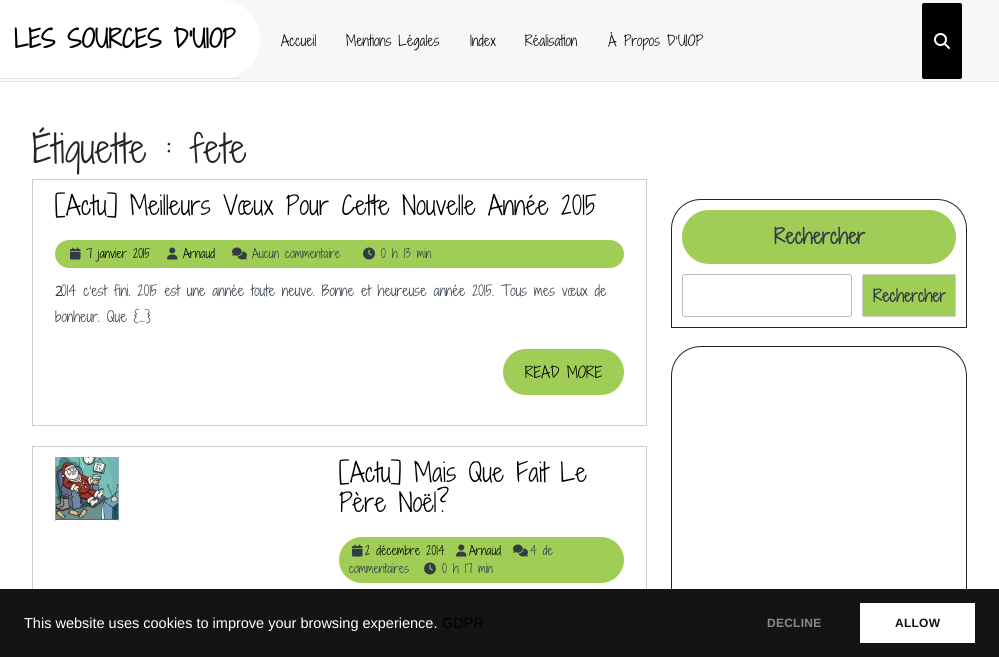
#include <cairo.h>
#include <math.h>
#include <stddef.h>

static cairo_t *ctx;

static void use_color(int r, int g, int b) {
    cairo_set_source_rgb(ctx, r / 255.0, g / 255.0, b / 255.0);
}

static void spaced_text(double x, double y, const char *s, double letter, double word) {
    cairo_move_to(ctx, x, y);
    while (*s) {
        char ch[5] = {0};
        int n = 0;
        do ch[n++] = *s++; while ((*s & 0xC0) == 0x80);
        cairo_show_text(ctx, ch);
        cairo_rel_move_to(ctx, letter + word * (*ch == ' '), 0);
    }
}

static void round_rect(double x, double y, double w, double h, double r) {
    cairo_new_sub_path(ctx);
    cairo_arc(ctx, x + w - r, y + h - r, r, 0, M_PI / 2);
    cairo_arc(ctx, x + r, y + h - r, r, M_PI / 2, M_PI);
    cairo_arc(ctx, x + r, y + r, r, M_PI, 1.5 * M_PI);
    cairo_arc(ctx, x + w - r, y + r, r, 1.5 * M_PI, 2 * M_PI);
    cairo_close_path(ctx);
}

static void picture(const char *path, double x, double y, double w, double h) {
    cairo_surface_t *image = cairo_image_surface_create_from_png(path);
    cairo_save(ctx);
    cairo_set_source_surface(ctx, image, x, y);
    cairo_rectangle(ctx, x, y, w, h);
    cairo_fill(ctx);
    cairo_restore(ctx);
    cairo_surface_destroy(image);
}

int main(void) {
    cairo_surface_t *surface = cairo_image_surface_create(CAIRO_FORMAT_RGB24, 999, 657);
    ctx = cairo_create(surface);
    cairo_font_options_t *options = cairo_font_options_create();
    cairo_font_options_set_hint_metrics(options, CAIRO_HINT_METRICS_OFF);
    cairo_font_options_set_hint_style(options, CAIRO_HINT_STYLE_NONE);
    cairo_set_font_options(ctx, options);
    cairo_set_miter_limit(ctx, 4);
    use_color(255, 255, 255);
    cairo_paint(ctx);
    use_color(247, 247, 247);
    cairo_rectangle(ctx, 0, 0, 999, 81);
    cairo_fill(ctx);
    use_color(227, 228, 228);
    cairo_rectangle(ctx, 0, 81, 999, 1);
    cairo_fill(ctx);
    use_color(255, 255, 255);
    cairo_new_path(ctx);
    cairo_move_to(ctx, -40, 0);
    cairo_line_to(ctx, 220.5, 0);
    cairo_curve_to(ctx, 242.5, 0, 260, 17.5, 260, 39.5);
    cairo_curve_to(ctx, 260, 61.5, 242.5, 79, 220.5, 79);
    cairo_line_to(ctx, -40, 79);
    cairo_close_path(ctx);
    cairo_fill(ctx);
    use_color(227, 228, 228);
    cairo_rectangle(ctx, 0, 78, 240, 1);
    cairo_fill(ctx);
    cairo_select_font_face(ctx, "Shadows Into Light Two", CAIRO_FONT_SLANT_NORMAL, CAIRO_FONT_WEIGHT_BOLD);
    cairo_set_font_size(ctx, 24);
    use_color(0, 0, 0);
    cairo_move_to(ctx, 14, 48);
    cairo_show_text(ctx, "LES SOURCES D'UIOP");
    cairo_select_font_face(ctx, "Shadows Into Light Two", CAIRO_FONT_SLANT_NORMAL, CAIRO_FONT_WEIGHT_NORMAL);
    cairo_set_font_size(ctx, 14);
    cairo_move_to(ctx, 281, 46);
    cairo_show_text(ctx, "Accueil");
    cairo_move_to(ctx, 346, 46);
    cairo_show_text(ctx, "Mentions Légales");
    cairo_move_to(ctx, 470, 46);
    cairo_show_text(ctx, "Index");
    cairo_move_to(ctx, 525, 46);
    cairo_show_text(ctx, "Réalisation");
    cairo_move_to(ctx, 608, 46);
    cairo_show_text(ctx, "À Propos D’UIOP");
    round_rect(922, 3, 40, 76, 2);
    cairo_fill(ctx);
    picture("img1.png", 934, 33, 16, 16);
    cairo_set_font_size(ctx, 37);
    use_color(33, 37, 41);
    cairo_move_to(ctx, 32, 163);
    cairo_show_text(ctx, "Étiquette : fete");
    cairo_rectangle(ctx, 32.5, 179.5, 614, 246);
    use_color(204, 204, 204);
    cairo_set_line_width(ctx, 1);
    cairo_stroke(ctx);
    cairo_set_font_size(ctx, 25);
    use_color(0, 0, 0);
    cairo_move_to(ctx, 55, 215);
    cairo_show_text(ctx, "[Actu] Meilleurs Vœux Pour Cette Nouvelle Année 2015");
    use_color(159, 205, 85);
    round_rect(55, 240, 569, 28, 14);
    cairo_fill(ctx);
    picture("img2.png", 70, 247, 11, 13);
    cairo_set_font_size(ctx, 12);
    use_color(0, 0, 0);
    cairo_move_to(ctx, 86, 258);
    cairo_show_text(ctx, "7 janvier 2015");
    picture("img3.png", 167, 247, 11, 13);
    cairo_move_to(ctx, 183, 258);
    cairo_show_text(ctx, "Arnaud");
    picture("img4.png", 232, 247, 15, 13);
    use_color(50, 60, 71);
    cairo_move_to(ctx, 252, 258);
    cairo_show_text(ctx, "Aucun commentaire");
    picture("img5.png", 363, 247, 12, 13);
    cairo_move_to(ctx, 381, 258);
    cairo_show_text(ctx, "0 h 13 min");
    cairo_select_font_face(ctx, "Noto Sans", CAIRO_FONT_SLANT_NORMAL, CAIRO_FONT_WEIGHT_NORMAL);
    cairo_set_font_size(ctx, 14);
    cairo_move_to(ctx, 55, 296);
    cairo_show_text(ctx, "2");
    cairo_select_font_face(ctx, "Shadows Into Light Two", CAIRO_FONT_SLANT_NORMAL, CAIRO_FONT_WEIGHT_NORMAL);
    cairo_move_to(ctx, 61, 296);
    cairo_show_text(ctx, "014 c’est fini. 2015 est une année toute neuve. Bonne et heureuse année 2015. Tous mes vœux de");
    cairo_move_to(ctx, 55, 322);
    cairo_show_text(ctx, "bonheur. Que {...}");
    use_color(159, 205, 85);
    round_rect(504, 350, 119, 44, 22);
    cairo_fill_preserve(ctx);
    cairo_set_line_width(ctx, 2);
    cairo_stroke(ctx);
    cairo_set_font_size(ctx, 15);
    use_color(0, 0, 0);
    cairo_move_to(ctx, 525, 378);
    cairo_show_text(ctx, "READ MORE");
    cairo_rectangle(ctx, 32.5, 446.5, 614, 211);
    use_color(204, 204, 204);
    cairo_set_line_width(ctx, 1);
    cairo_stroke(ctx);
    picture("img6.png", 55, 457, 64, 64);
    cairo_set_font_size(ctx, 25);
    use_color(0, 0, 0);
    cairo_move_to(ctx, 339, 482);
    cairo_show_text(ctx, "[Actu] Mais Que Fait Le");
    cairo_move_to(ctx, 339, 512);
    cairo_show_text(ctx, "Père Noël?");
    use_color(159, 205, 85);
    round_rect(339, 537, 285, 46, 23);
    cairo_fill(ctx);
    picture("img2.png", 352, 544, 11, 13);
    cairo_set_font_size(ctx, 12);
    use_color(0, 0, 0);
    cairo_move_to(ctx, 365, 555);
    cairo_show_text(ctx, "2 décembre 2014");
    picture("img3.png", 456, 544, 11, 13);
    cairo_move_to(ctx, 469, 555);
    cairo_show_text(ctx, "Arnaud");
    picture("img4.png", 513, 544, 15, 13);
    use_color(50, 60, 71);
    cairo_move_to(ctx, 530, 555);
    cairo_show_text(ctx, "4 de");
    cairo_move_to(ctx, 349, 573);
    cairo_show_text(ctx, "commentaires");
    picture("img5.png", 424, 562, 12, 13);
    cairo_move_to(ctx, 442, 573);
    cairo_show_text(ctx, "0 h 17 min");
    cairo_new_path(ctx);
    cairo_move_to(ctx, 701, 199.5);
    cairo_line_to(ctx, 937, 199.5);
    cairo_curve_to(ctx, 953.5, 199.5, 966.5, 212.5, 966.5, 229);
    cairo_line_to(ctx, 966.5, 327.5);
    cairo_line_to(ctx, 671.5, 327.5);
    cairo_line_to(ctx, 671.5, 229);
    cairo_curve_to(ctx, 671.5, 212.5, 684.5, 199.5, 701, 199.5);
    cairo_close_path(ctx);
    use_color(38, 37, 37);
    cairo_stroke(ctx);
    use_color(159, 205, 85);
    round_rect(682, 210, 274, 54, 27);
    cairo_fill(ctx);
    cairo_select_font_face(ctx, "Shadows Into Light Two", CAIRO_FONT_SLANT_NORMAL, CAIRO_FONT_WEIGHT_BOLD);
    cairo_set_font_size(ctx, 20);
    use_color(50, 60, 71);
    cairo_move_to(ctx, 774, 244);
    cairo_show_text(ctx, "Rechercher");
    round_rect(682.5, 274.5, 169, 42, 2.5);
    use_color(187, 187, 187);
    cairo_stroke(ctx);
    use_color(159, 205, 85);
    round_rect(862.5, 274.5, 93, 42, 1.5);
    cairo_fill_preserve(ctx);
    use_color(204, 204, 204);
    cairo_stroke(ctx);
    cairo_set_font_size(ctx, 16);
    use_color(50, 60, 71);
    cairo_move_to(ctx, 873, 302);
    cairo_show_text(ctx, "Rechercher");
    cairo_new_path(ctx);
    cairo_move_to(ctx, 701, 346.5);
    cairo_line_to(ctx, 937, 346.5);
    cairo_curve_to(ctx, 953.5, 346.5, 966.5, 359.5, 966.5, 376);
    cairo_line_to(ctx, 966.5, 617.5);
    cairo_line_to(ctx, 671.5, 617.5);
    cairo_line_to(ctx, 671.5, 376);
    cairo_curve_to(ctx, 671.5, 359.5, 684.5, 346.5, 701, 346.5);
    cairo_close_path(ctx);
    use_color(38, 37, 37);
    cairo_stroke(ctx);
    use_color(20, 20, 20);
    cairo_rectangle(ctx, 0, 589, 999, 68);
    cairo_fill(ctx);
    cairo_select_font_face(ctx, "Liberation Sans", CAIRO_FONT_SLANT_NORMAL, CAIRO_FONT_WEIGHT_NORMAL);
    cairo_set_font_size(ctx, 14.5);
    use_color(255, 255, 255);
    cairo_move_to(ctx, 24, 628);
    cairo_show_text(ctx, "This website uses cookies to improve your browsing experience.");
    use_color(0, 0, 0);
    cairo_move_to(ctx, 442, 628);
    cairo_show_text(ctx, "GDPR");
    cairo_select_font_face(ctx, "Liberation Sans", CAIRO_FONT_SLANT_NORMAL, CAIRO_FONT_WEIGHT_BOLD);
    cairo_set_font_size(ctx, 12);
    use_color(138, 138, 138);
    spaced_text(767, 627, "DECLINE", 0.25, 0);
    use_color(255, 255, 255);
    cairo_rectangle(ctx, 860, 603, 115, 40);
    cairo_fill(ctx);
    use_color(20, 20, 20);
    spaced_text(895, 627, "ALLOW", 0.25, 0);
    cairo_surface_write_to_png(surface, "result.png");
    cairo_font_options_destroy(options);
    cairo_destroy(ctx);
    cairo_surface_destroy(surface);
    return 0;
}
